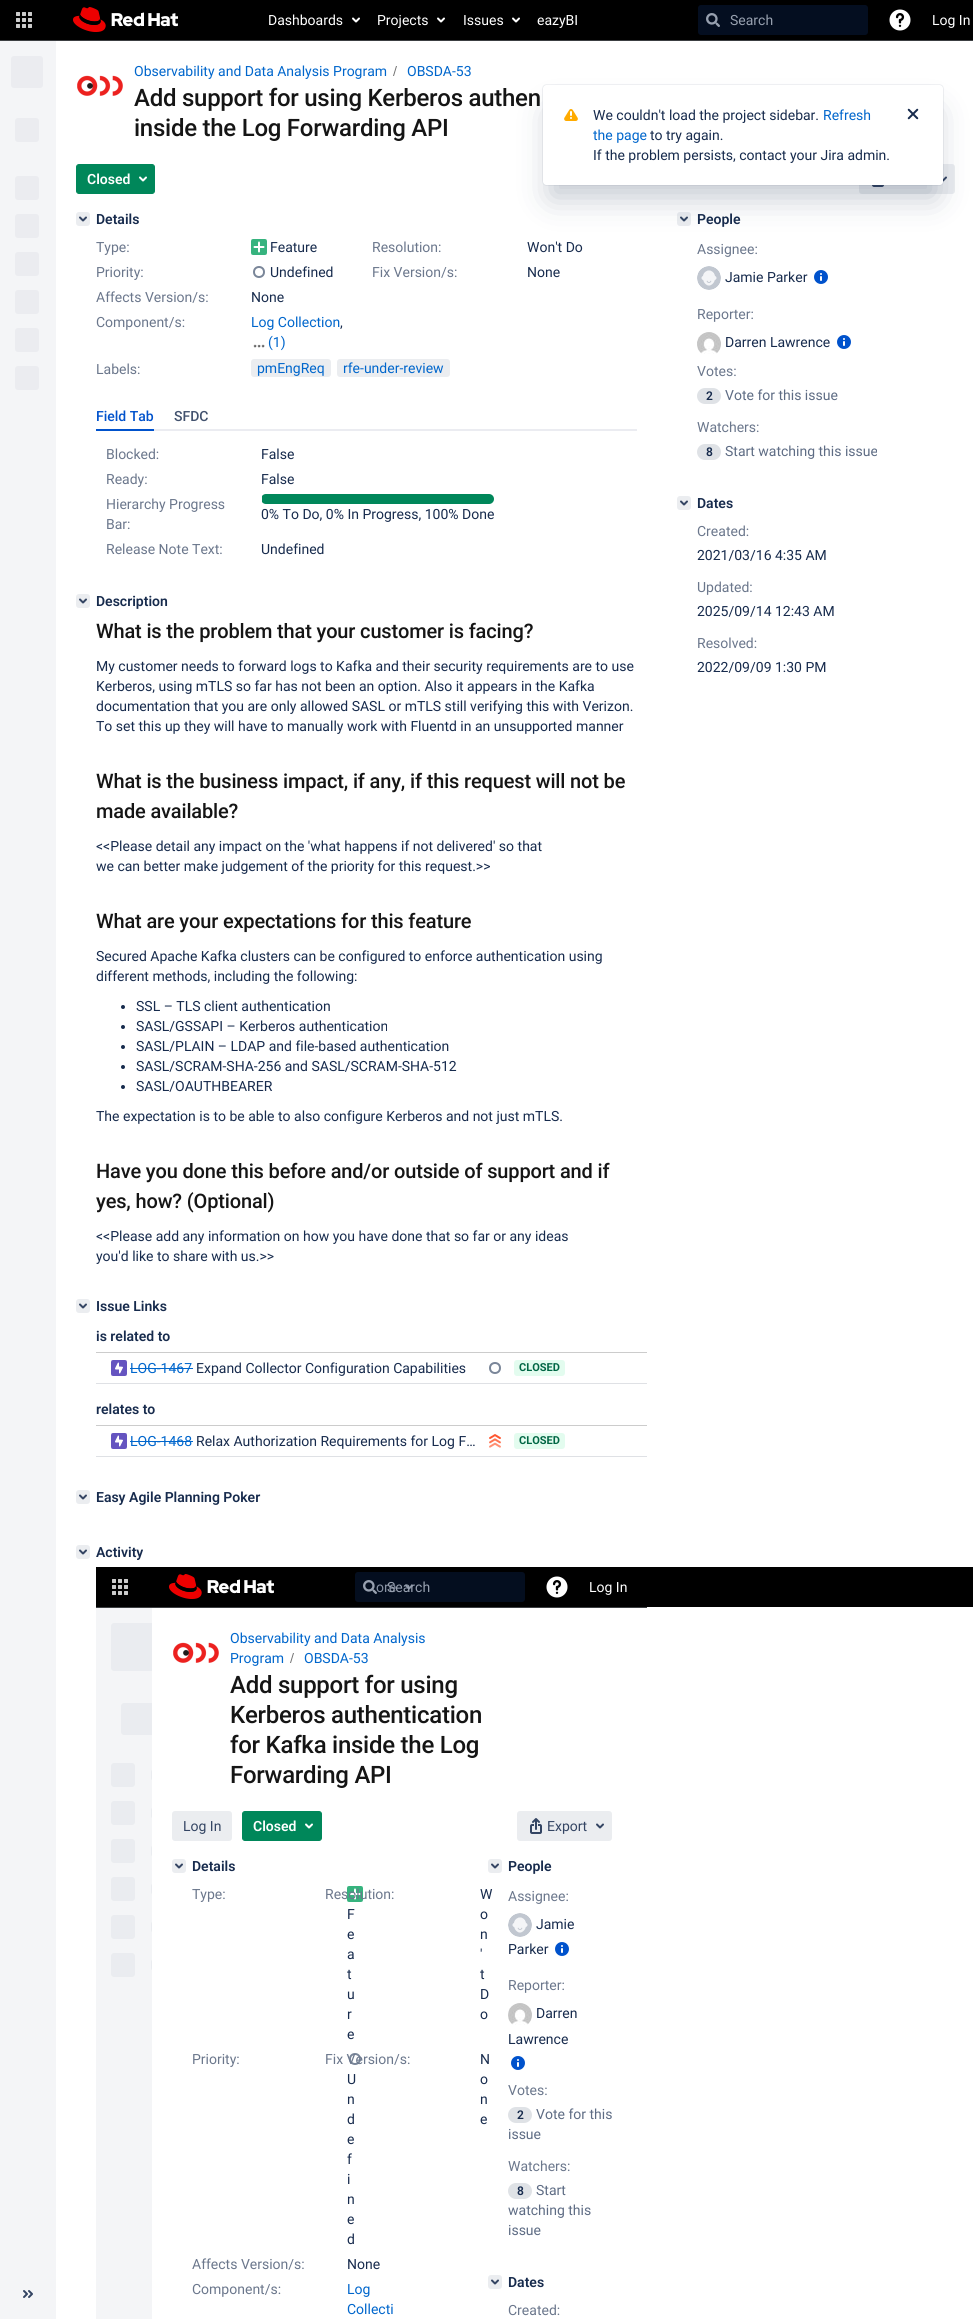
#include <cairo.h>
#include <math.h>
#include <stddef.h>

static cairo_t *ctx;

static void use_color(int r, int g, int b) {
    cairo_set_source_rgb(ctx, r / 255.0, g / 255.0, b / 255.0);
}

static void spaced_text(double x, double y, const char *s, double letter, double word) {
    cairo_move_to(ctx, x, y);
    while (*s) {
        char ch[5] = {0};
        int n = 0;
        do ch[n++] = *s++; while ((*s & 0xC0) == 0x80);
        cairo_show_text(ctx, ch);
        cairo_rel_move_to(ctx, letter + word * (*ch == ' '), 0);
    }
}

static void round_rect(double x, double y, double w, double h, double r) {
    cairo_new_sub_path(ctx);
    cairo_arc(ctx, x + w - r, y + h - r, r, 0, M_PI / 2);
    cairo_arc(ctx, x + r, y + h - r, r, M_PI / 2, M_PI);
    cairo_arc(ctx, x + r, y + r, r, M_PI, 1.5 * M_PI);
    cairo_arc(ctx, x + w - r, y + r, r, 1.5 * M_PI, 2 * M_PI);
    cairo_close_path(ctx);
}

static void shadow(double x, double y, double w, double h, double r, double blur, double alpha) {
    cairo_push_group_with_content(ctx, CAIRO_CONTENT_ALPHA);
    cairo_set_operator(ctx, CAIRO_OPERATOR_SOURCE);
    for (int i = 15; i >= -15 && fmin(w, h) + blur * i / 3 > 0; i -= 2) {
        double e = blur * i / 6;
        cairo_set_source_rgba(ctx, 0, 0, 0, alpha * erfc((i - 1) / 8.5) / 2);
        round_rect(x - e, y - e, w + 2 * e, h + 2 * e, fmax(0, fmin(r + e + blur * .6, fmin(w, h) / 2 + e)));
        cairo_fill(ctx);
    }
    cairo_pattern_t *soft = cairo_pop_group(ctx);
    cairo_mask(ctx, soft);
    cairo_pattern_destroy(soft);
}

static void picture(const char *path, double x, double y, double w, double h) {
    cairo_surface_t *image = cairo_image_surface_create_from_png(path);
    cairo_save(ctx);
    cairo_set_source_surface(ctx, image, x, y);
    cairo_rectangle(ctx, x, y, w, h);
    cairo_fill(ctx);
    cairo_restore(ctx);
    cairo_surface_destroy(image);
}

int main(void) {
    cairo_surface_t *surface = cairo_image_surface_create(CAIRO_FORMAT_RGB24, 973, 2319);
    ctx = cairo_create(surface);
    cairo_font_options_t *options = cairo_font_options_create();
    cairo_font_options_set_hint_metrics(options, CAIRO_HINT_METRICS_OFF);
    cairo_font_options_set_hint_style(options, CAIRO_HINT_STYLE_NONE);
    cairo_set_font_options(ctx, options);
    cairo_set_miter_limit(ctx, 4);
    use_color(255, 255, 255);
    cairo_paint(ctx);
    use_color(0, 0, 0);
    cairo_rectangle(ctx, 0, 0, 973, 40);
    cairo_fill(ctx);
    use_color(60, 63, 66);
    cairo_rectangle(ctx, 0, 40, 973, 1);
    cairo_fill(ctx);
    picture("img1.png", 16, 12, 16, 16);
    picture("img2.png", 73, 7, 105, 25);
    cairo_select_font_face(ctx, "Roboto", CAIRO_FONT_SLANT_NORMAL, CAIRO_FONT_WEIGHT_NORMAL);
    cairo_set_font_size(ctx, 14);
    use_color(255, 255, 255);
    cairo_move_to(ctx, 268, 25);
    cairo_show_text(ctx, "Dashboards");
    picture("img3.png", 352, 17, 8, 6);
    cairo_move_to(ctx, 377, 25);
    cairo_show_text(ctx, "Projects");
    picture("img3.png", 437, 17, 8, 6);
    cairo_move_to(ctx, 463, 25);
    cairo_show_text(ctx, "Issues");
    picture("img3.png", 512, 17, 8, 6);
    cairo_move_to(ctx, 537, 25);
    cairo_show_text(ctx, "eazyBI");
    use_color(4, 14, 32);
    round_rect(698, 5, 170, 30, 3);
    cairo_fill(ctx);
    picture("img4.png", 706, 13, 14, 14);
    use_color(151, 160, 175);
    cairo_move_to(ctx, 730, 25);
    cairo_show_text(ctx, "Search");
    picture("img5.png", 889, 9, 22, 22);
    use_color(255, 255, 255);
    cairo_move_to(ctx, 932, 25);
    cairo_show_text(ctx, "Log In");
    use_color(244, 245, 247);
    cairo_rectangle(ctx, 0, 41, 56, 2278);
    cairo_fill(ctx);
    use_color(235, 236, 240);
    round_rect(11, 56, 32, 32, 3);
    cairo_fill(ctx);
    round_rect(15, 118, 24, 24, 3);
    cairo_fill(ctx);
    round_rect(15, 176, 24, 24, 3);
    cairo_fill(ctx);
    round_rect(15, 214, 24, 24, 3);
    cairo_fill(ctx);
    round_rect(15, 252, 24, 24, 3);
    cairo_fill(ctx);
    round_rect(15, 290, 24, 24, 3);
    cairo_fill(ctx);
    round_rect(15, 328, 24, 24, 3);
    cairo_fill(ctx);
    round_rect(15, 366, 24, 24, 3);
    cairo_fill(ctx);
    picture("img6.png", 23, 2290, 10, 8);
    picture("img7.png", 77, 75, 46, 21);
    use_color(0, 102, 204);
    cairo_move_to(ctx, 134, 76);
    cairo_show_text(ctx, "Observability and Data Analysis Program");
    use_color(112, 112, 112);
    cairo_new_path(ctx);
    cairo_move_to(ctx, 394, 76);
    cairo_line_to(ctx, 397, 66);
    cairo_line_to(ctx, 396, 66);
    cairo_line_to(ctx, 393, 76);
    cairo_close_path(ctx);
    cairo_fill(ctx);
    use_color(0, 102, 204);
    cairo_move_to(ctx, 407, 76);
    cairo_show_text(ctx, "OBSDA-53");
    cairo_select_font_face(ctx, "Roboto Medium", CAIRO_FONT_SLANT_NORMAL, CAIRO_FONT_WEIGHT_NORMAL);
    cairo_set_font_size(ctx, 24);
    use_color(21, 21, 21);
    spaced_text(134, 106, "Add support for using Kerberos authen", -0.25, 0);
    spaced_text(134, 136, "inside the Log Forwarding API", -0.25, 0);
    use_color(0, 135, 90);
    round_rect(76.5, 164.5, 78, 29, 2.5);
    cairo_fill_preserve(ctx);
    cairo_set_line_width(ctx, 1);
    cairo_stroke(ctx);
    cairo_select_font_face(ctx, "Roboto SemiBold", CAIRO_FONT_SLANT_NORMAL, CAIRO_FONT_WEIGHT_NORMAL);
    cairo_set_font_size(ctx, 14);
    use_color(255, 255, 255);
    cairo_move_to(ctx, 87, 184);
    cairo_show_text(ctx, "Closed");
    picture("img8.png", 139, 176, 8, 6);
    use_color(235, 237, 240);
    round_rect(859, 164, 96, 30, 3);
    cairo_fill(ctx);
    picture("img9.png", 943, 176, 4, 6);
    picture("img10.png", 872, 185, 12, 2);
    round_rect(76, 212, 14, 14, 3);
    cairo_fill(ctx);
    picture("img11.png", 79, 216, 8, 6);
    use_color(23, 43, 77);
    cairo_move_to(ctx, 96, 224);
    cairo_show_text(ctx, "Details");
    cairo_select_font_face(ctx, "Roboto", CAIRO_FONT_SLANT_NORMAL, CAIRO_FONT_WEIGHT_NORMAL);
    use_color(107, 119, 140);
    cairo_move_to(ctx, 96, 252);
    cairo_show_text(ctx, "Type:");
    picture("img12.png", 251, 239, 16, 16);
    use_color(23, 43, 77);
    cairo_move_to(ctx, 270, 252);
    cairo_show_text(ctx, "Feature");
    use_color(107, 119, 140);
    cairo_move_to(ctx, 372, 252);
    cairo_show_text(ctx, "Resolution:");
    use_color(23, 43, 77);
    cairo_move_to(ctx, 527, 252);
    cairo_show_text(ctx, "Won't Do");
    use_color(107, 119, 140);
    cairo_move_to(ctx, 96, 277);
    cairo_show_text(ctx, "Priority:");
    cairo_new_path(ctx);
    cairo_arc(ctx, 259, 272, 5, 0, 2 * M_PI);
    use_color(122, 134, 153);
    cairo_set_line_width(ctx, 2);
    cairo_stroke(ctx);
    use_color(23, 43, 77);
    cairo_move_to(ctx, 270, 277);
    cairo_show_text(ctx, "Undefined");
    use_color(107, 119, 140);
    cairo_move_to(ctx, 372, 277);
    cairo_show_text(ctx, "Fix Version/s:");
    use_color(23, 43, 77);
    cairo_move_to(ctx, 527, 277);
    cairo_show_text(ctx, "None");
    use_color(107, 119, 140);
    cairo_move_to(ctx, 96, 302);
    cairo_show_text(ctx, "Affects Version/s:");
    use_color(23, 43, 77);
    cairo_move_to(ctx, 251, 302);
    cairo_show_text(ctx, "None");
    use_color(107, 119, 140);
    cairo_move_to(ctx, 96, 327);
    cairo_show_text(ctx, "Component/s:");
    use_color(0, 102, 204);
    cairo_move_to(ctx, 251, 327);
    cairo_show_text(ctx, "Log Collection");
    use_color(23, 43, 77);
    cairo_move_to(ctx, 340, 327);
    cairo_show_text(ctx, ",");
    picture("img13.png", 253, 344, 12, 4);
    use_color(0, 102, 204);
    cairo_move_to(ctx, 268, 347);
    cairo_show_text(ctx, "(1)");
    use_color(107, 119, 140);
    cairo_move_to(ctx, 96, 374);
    cairo_show_text(ctx, "Labels:");
    use_color(235, 237, 240);
    round_rect(251, 359, 80, 18, 3);
    cairo_fill(ctx);
    use_color(0, 102, 204);
    cairo_move_to(ctx, 257, 373);
    cairo_show_text(ctx, "pmEngReq");
    use_color(235, 237, 240);
    round_rect(337, 359, 113, 18, 3);
    cairo_fill(ctx);
    use_color(0, 102, 204);
    cairo_move_to(ctx, 343, 373);
    cairo_show_text(ctx, "rfe-under-review");
    cairo_select_font_face(ctx, "Roboto Medium", CAIRO_FONT_SLANT_NORMAL, CAIRO_FONT_WEIGHT_NORMAL);
    use_color(0, 82, 204);
    cairo_move_to(ctx, 96, 421);
    cairo_show_text(ctx, "Field Tab");
    cairo_rectangle(ctx, 96, 429, 58, 2);
    cairo_fill(ctx);
    use_color(66, 82, 110);
    cairo_move_to(ctx, 174, 421);
    cairo_show_text(ctx, "SFDC");
    use_color(235, 236, 241);
    cairo_rectangle(ctx, 154, 429, 483, 2);
    cairo_fill(ctx);
    cairo_select_font_face(ctx, "Roboto", CAIRO_FONT_SLANT_NORMAL, CAIRO_FONT_WEIGHT_NORMAL);
    use_color(107, 119, 140);
    cairo_move_to(ctx, 106, 459);
    cairo_show_text(ctx, "Blocked:");
    use_color(23, 43, 77);
    cairo_move_to(ctx, 261, 459);
    cairo_show_text(ctx, "False");
    use_color(107, 119, 140);
    cairo_move_to(ctx, 106, 484);
    cairo_show_text(ctx, "Ready:");
    use_color(23, 43, 77);
    cairo_move_to(ctx, 261, 484);
    cairo_show_text(ctx, "False");
    use_color(107, 119, 140);
    cairo_move_to(ctx, 106, 509);
    cairo_show_text(ctx, "Hierarchy Progress");
    cairo_move_to(ctx, 106, 529);
    cairo_show_text(ctx, "Bar:");
    use_color(239, 241, 243);
    round_rect(261, 494, 233, 10, 5);
    cairo_fill(ctx);
    cairo_save(ctx);
    round_rect(261, 494, 233, 10, 5);
    cairo_clip(ctx);
    use_color(255, 255, 255);
    cairo_rectangle(ctx, 261, 494, 1, 10);
    cairo_fill(ctx);
    use_color(0, 135, 90);
    cairo_new_path(ctx);
    cairo_move_to(ctx, 262, 494);
    cairo_line_to(ctx, 489, 494);
    cairo_curve_to(ctx, 492, 494, 494, 496, 494, 499);
    cairo_curve_to(ctx, 494, 502, 492, 504, 489, 504);
    cairo_line_to(ctx, 262, 504);
    cairo_close_path(ctx);
    cairo_fill(ctx);
    cairo_restore(ctx);
    use_color(23, 43, 77);
    cairo_move_to(ctx, 261, 519);
    cairo_show_text(ctx, "0% To Do, 0% In Progress, 100% Done");
    use_color(107, 119, 140);
    cairo_move_to(ctx, 106, 554);
    cairo_show_text(ctx, "Release Note Text:");
    use_color(23, 43, 77);
    cairo_move_to(ctx, 261, 554);
    cairo_show_text(ctx, "Undefined");
    use_color(235, 237, 240);
    round_rect(76, 594, 14, 14, 3);
    cairo_fill(ctx);
    picture("img11.png", 79, 598, 8, 6);
    cairo_select_font_face(ctx, "Roboto SemiBold", CAIRO_FONT_SLANT_NORMAL, CAIRO_FONT_WEIGHT_NORMAL);
    use_color(23, 43, 77);
    cairo_move_to(ctx, 96, 606);
    cairo_show_text(ctx, "Description");
    cairo_select_font_face(ctx, "Roboto Medium", CAIRO_FONT_SLANT_NORMAL, CAIRO_FONT_WEIGHT_NORMAL);
    cairo_set_font_size(ctx, 20);
    use_color(21, 21, 21);
    spaced_text(96, 638, "What is the problem that your customer is facing?", -0.15, 0);
    cairo_select_font_face(ctx, "Roboto", CAIRO_FONT_SLANT_NORMAL, CAIRO_FONT_WEIGHT_NORMAL);
    cairo_set_font_size(ctx, 14);
    use_color(23, 43, 77);
    cairo_move_to(ctx, 96, 671);
    cairo_show_text(ctx, "My customer needs to forward logs to Kafka and their security requirements are to use");
    cairo_move_to(ctx, 96, 691);
    cairo_show_text(ctx, "Kerberos, using mTLS so far has not been an option. Also it appears in the Kafka");
    cairo_move_to(ctx, 96, 711);
    cairo_show_text(ctx, "documentation that you are only allowed SASL or mTLS still verifying this with Verizon.");
    cairo_move_to(ctx, 96, 731);
    cairo_show_text(ctx, "To set this up they will have to manually work with Fluentd in an unsupported manner");
    cairo_select_font_face(ctx, "Roboto Medium", CAIRO_FONT_SLANT_NORMAL, CAIRO_FONT_WEIGHT_NORMAL);
    cairo_set_font_size(ctx, 20);
    use_color(21, 21, 21);
    spaced_text(96, 788, "What is the business impact, if any, if this request will not be", -0.15, 0);
    spaced_text(96, 818, "made available?", -0.15, 0);
    cairo_select_font_face(ctx, "Roboto", CAIRO_FONT_SLANT_NORMAL, CAIRO_FONT_WEIGHT_NORMAL);
    cairo_set_font_size(ctx, 14);
    use_color(23, 43, 77);
    cairo_move_to(ctx, 96, 851);
    cairo_show_text(ctx, "<<Please detail any impact on the 'what happens if not delivered' so that");
    cairo_move_to(ctx, 96, 871);
    cairo_show_text(ctx, "we can better make judgement of the priority for this request.>>");
    cairo_select_font_face(ctx, "Roboto Medium", CAIRO_FONT_SLANT_NORMAL, CAIRO_FONT_WEIGHT_NORMAL);
    cairo_set_font_size(ctx, 20);
    use_color(21, 21, 21);
    spaced_text(96, 928, "What are your expectations for this feature", -0.15, 0);
    cairo_select_font_face(ctx, "Roboto", CAIRO_FONT_SLANT_NORMAL, CAIRO_FONT_WEIGHT_NORMAL);
    cairo_set_font_size(ctx, 14);
    use_color(23, 43, 77);
    cairo_move_to(ctx, 96, 961);
    cairo_show_text(ctx, "Secured Apache Kafka clusters can be configured to enforce authentication using");
    cairo_move_to(ctx, 96, 981);
    cairo_show_text(ctx, "different methods, including the following:");
    cairo_new_path(ctx);
    cairo_arc(ctx, 123, 1007, 2, 0, 2 * M_PI);
    cairo_fill(ctx);
    cairo_move_to(ctx, 136, 1011);
    cairo_show_text(ctx, "SSL – TLS client authentication");
    cairo_new_path(ctx);
    cairo_arc(ctx, 123, 1027, 2, 0, 2 * M_PI);
    cairo_fill(ctx);
    cairo_move_to(ctx, 136, 1031);
    cairo_show_text(ctx, "SASL/GSSAPI – Kerberos authentication");
    cairo_new_path(ctx);
    cairo_arc(ctx, 123, 1047, 2, 0, 2 * M_PI);
    cairo_fill(ctx);
    cairo_move_to(ctx, 136, 1051);
    cairo_show_text(ctx, "SASL/PLAIN – LDAP and file-based authentication");
    cairo_new_path(ctx);
    cairo_arc(ctx, 123, 1067, 2, 0, 2 * M_PI);
    cairo_fill(ctx);
    cairo_move_to(ctx, 136, 1071);
    cairo_show_text(ctx, "SASL/SCRAM-SHA-256 and SASL/SCRAM-SHA-512");
    cairo_new_path(ctx);
    cairo_arc(ctx, 123, 1087, 2, 0, 2 * M_PI);
    cairo_fill(ctx);
    cairo_move_to(ctx, 136, 1091);
    cairo_show_text(ctx, "SASL/OAUTHBEARER");
    cairo_move_to(ctx, 96, 1121);
    cairo_show_text(ctx, "The expectation is to be able to also configure Kerberos and not just mTLS.");
    cairo_select_font_face(ctx, "Roboto Medium", CAIRO_FONT_SLANT_NORMAL, CAIRO_FONT_WEIGHT_NORMAL);
    cairo_set_font_size(ctx, 20);
    use_color(21, 21, 21);
    spaced_text(96, 1178, "Have you done this before and/or outside of support and if", -0.15, 0);
    spaced_text(96, 1208, "yes, how? (Optional)", -0.15, 0);
    cairo_select_font_face(ctx, "Roboto", CAIRO_FONT_SLANT_NORMAL, CAIRO_FONT_WEIGHT_NORMAL);
    cairo_set_font_size(ctx, 14);
    use_color(23, 43, 77);
    cairo_move_to(ctx, 96, 1241);
    cairo_show_text(ctx, "<<Please add any information on how you have done that so far or any ideas");
    cairo_move_to(ctx, 96, 1261);
    cairo_show_text(ctx, "you'd like to share with us.>>");
    use_color(235, 237, 240);
    round_rect(76, 1299, 14, 14, 3);
    cairo_fill(ctx);
    picture("img11.png", 79, 1303, 8, 6);
    cairo_select_font_face(ctx, "Roboto SemiBold", CAIRO_FONT_SLANT_NORMAL, CAIRO_FONT_WEIGHT_NORMAL);
    use_color(23, 43, 77);
    cairo_move_to(ctx, 96, 1311);
    cairo_show_text(ctx, "Issue Links");
    cairo_move_to(ctx, 96, 1341);
    cairo_show_text(ctx, "is related to");
    use_color(204, 204, 204);
    cairo_rectangle(ctx, 96, 1352, 551, 1);
    cairo_fill(ctx);
    use_color(223, 225, 229);
    cairo_rectangle(ctx, 96, 1383, 551, 1);
    cairo_fill(ctx);
    picture("img14.png", 111, 1360, 16, 16);
    cairo_select_font_face(ctx, "Roboto", CAIRO_FONT_SLANT_NORMAL, CAIRO_FONT_WEIGHT_NORMAL);
    use_color(0, 102, 204);
    cairo_move_to(ctx, 130, 1373);
    cairo_show_text(ctx, "LOG-1467");
    cairo_rectangle(ctx, 130, 1368, 63, 1);
    cairo_fill(ctx);
    use_color(23, 43, 77);
    cairo_move_to(ctx, 196, 1373);
    cairo_show_text(ctx, "Expand Collector Configuration Capabilities");
    cairo_new_path(ctx);
    cairo_arc(ctx, 495, 1368, 5, 0, 2 * M_PI);
    use_color(122, 134, 153);
    cairo_stroke(ctx);
    use_color(227, 252, 239);
    round_rect(514, 1360, 51, 16, 3);
    cairo_fill(ctx);
    cairo_select_font_face(ctx, "Roboto", CAIRO_FONT_SLANT_NORMAL, CAIRO_FONT_WEIGHT_BOLD);
    cairo_set_font_size(ctx, 11);
    use_color(0, 102, 68);
    cairo_move_to(ctx, 519, 1371);
    cairo_show_text(ctx, "CLOSED");
    cairo_select_font_face(ctx, "Roboto SemiBold", CAIRO_FONT_SLANT_NORMAL, CAIRO_FONT_WEIGHT_NORMAL);
    cairo_set_font_size(ctx, 14);
    use_color(23, 43, 77);
    cairo_move_to(ctx, 96, 1414);
    cairo_show_text(ctx, "relates to");
    use_color(204, 204, 204);
    cairo_rectangle(ctx, 96, 1425, 551, 1);
    cairo_fill(ctx);
    use_color(223, 225, 229);
    cairo_rectangle(ctx, 96, 1456, 551, 1);
    cairo_fill(ctx);
    picture("img14.png", 111, 1433, 16, 16);
    cairo_select_font_face(ctx, "Roboto", CAIRO_FONT_SLANT_NORMAL, CAIRO_FONT_WEIGHT_NORMAL);
    use_color(0, 102, 204);
    cairo_move_to(ctx, 130, 1446);
    cairo_show_text(ctx, "LOG-1468");
    cairo_rectangle(ctx, 130, 1441, 63, 1);
    cairo_fill(ctx);
    use_color(23, 43, 77);
    cairo_move_to(ctx, 196, 1446);
    cairo_show_text(ctx, "Relax Authorization Requirements for Log F…");
    picture("img15.png", 489, 1434, 12, 14);
    use_color(227, 252, 239);
    round_rect(514, 1433, 51, 16, 3);
    cairo_fill(ctx);
    cairo_select_font_face(ctx, "Roboto", CAIRO_FONT_SLANT_NORMAL, CAIRO_FONT_WEIGHT_BOLD);
    cairo_set_font_size(ctx, 11);
    use_color(0, 102, 68);
    cairo_move_to(ctx, 519, 1444);
    cairo_show_text(ctx, "CLOSED");
    use_color(235, 237, 240);
    round_rect(76, 1490, 14, 14, 3);
    cairo_fill(ctx);
    picture("img11.png", 79, 1494, 8, 6);
    cairo_select_font_face(ctx, "Roboto SemiBold", CAIRO_FONT_SLANT_NORMAL, CAIRO_FONT_WEIGHT_NORMAL);
    cairo_set_font_size(ctx, 14);
    use_color(23, 43, 77);
    cairo_move_to(ctx, 96, 1502);
    cairo_show_text(ctx, "Easy Agile Planning Poker");
    use_color(235, 237, 240);
    round_rect(76, 1545, 14, 14, 3);
    cairo_fill(ctx);
    picture("img11.png", 79, 1549, 8, 6);
    use_color(23, 43, 77);
    cairo_move_to(ctx, 96, 1557);
    cairo_show_text(ctx, "Activity");
    use_color(0, 0, 0);
    cairo_rectangle(ctx, 96, 1567, 877, 40);
    cairo_fill(ctx);
    use_color(60, 63, 66);
    cairo_rectangle(ctx, 96, 1607, 551, 1);
    cairo_fill(ctx);
    picture("img1.png", 112, 1579, 16, 16);
    picture("img2.png", 169, 1574, 105, 25);
    cairo_select_font_face(ctx, "Roboto", CAIRO_FONT_SLANT_NORMAL, CAIRO_FONT_WEIGHT_NORMAL);
    use_color(255, 255, 255);
    cairo_move_to(ctx, 376, 1592);
    cairo_show_text(ctx, "ore");
    picture("img3.png", 405, 1584, 8, 6);
    cairo_set_source_rgba(ctx, 0.035, 0.118, 0.259, 0.48);
    round_rect(355, 1572, 170, 30, 3);
    cairo_fill(ctx);
    picture("img16.png", 363, 1580, 14, 14);
    use_color(151, 160, 175);
    cairo_move_to(ctx, 387, 1592);
    cairo_show_text(ctx, "Search");
    picture("img5.png", 546, 1576, 22, 22);
    use_color(255, 255, 255);
    cairo_move_to(ctx, 589, 1592);
    cairo_show_text(ctx, "Log In");
    use_color(244, 245, 247);
    cairo_rectangle(ctx, 96, 1608, 56, 711);
    cairo_fill(ctx);
    picture("img17.png", 111, 1623, 41, 354);
    picture("img7.png", 173, 1642, 46, 21);
    use_color(0, 102, 204);
    cairo_move_to(ctx, 230, 1643);
    cairo_show_text(ctx, "Observability and Data Analysis");
    cairo_move_to(ctx, 230, 1663);
    cairo_show_text(ctx, "Program");
    use_color(112, 112, 112);
    cairo_new_path(ctx);
    cairo_move_to(ctx, 291, 1663);
    cairo_line_to(ctx, 294, 1653);
    cairo_line_to(ctx, 293, 1653);
    cairo_line_to(ctx, 290, 1663);
    cairo_close_path(ctx);
    cairo_fill(ctx);
    use_color(0, 102, 204);
    cairo_move_to(ctx, 304, 1663);
    cairo_show_text(ctx, "OBSDA-53");
    cairo_select_font_face(ctx, "Roboto Medium", CAIRO_FONT_SLANT_NORMAL, CAIRO_FONT_WEIGHT_NORMAL);
    cairo_set_font_size(ctx, 24);
    use_color(21, 21, 21);
    spaced_text(230, 1693, "Add support for using", -0.25, 0);
    spaced_text(230, 1723, "Kerberos authentication", -0.25, 0);
    spaced_text(230, 1753, "for Kafka inside the Log", -0.25, 0);
    spaced_text(230, 1783, "Forwarding API", -0.25, 0);
    use_color(235, 237, 240);
    round_rect(172, 1811, 60, 30, 3);
    cairo_fill(ctx);
    cairo_select_font_face(ctx, "Roboto", CAIRO_FONT_SLANT_NORMAL, CAIRO_FONT_WEIGHT_NORMAL);
    cairo_set_font_size(ctx, 14);
    use_color(52, 69, 99);
    cairo_move_to(ctx, 183, 1831);
    cairo_show_text(ctx, "Log In");
    use_color(0, 135, 90);
    round_rect(242.5, 1811.5, 79, 29, 2.5);
    cairo_fill_preserve(ctx);
    cairo_set_line_width(ctx, 1);
    cairo_stroke(ctx);
    cairo_select_font_face(ctx, "Roboto SemiBold", CAIRO_FONT_SLANT_NORMAL, CAIRO_FONT_WEIGHT_NORMAL);
    use_color(255, 255, 255);
    cairo_move_to(ctx, 253, 1831);
    cairo_show_text(ctx, "Closed");
    picture("img8.png", 305, 1823, 8, 6);
    use_color(235, 237, 240);
    round_rect(517, 1811, 95, 30, 3);
    cairo_fill(ctx);
    picture("img18.png", 530, 1818, 12, 16);
    cairo_select_font_face(ctx, "Roboto", CAIRO_FONT_SLANT_NORMAL, CAIRO_FONT_WEIGHT_NORMAL);
    use_color(52, 69, 99);
    cairo_move_to(ctx, 547, 1831);
    cairo_show_text(ctx, "Export");
    picture("img19.png", 596, 1823, 8, 6);
    use_color(235, 237, 240);
    round_rect(172, 1859, 14, 14, 3);
    cairo_fill(ctx);
    picture("img11.png", 175, 1863, 8, 6);
    cairo_select_font_face(ctx, "Roboto SemiBold", CAIRO_FONT_SLANT_NORMAL, CAIRO_FONT_WEIGHT_NORMAL);
    use_color(23, 43, 77);
    cairo_move_to(ctx, 192, 1871);
    cairo_show_text(ctx, "Details");
    cairo_select_font_face(ctx, "Roboto", CAIRO_FONT_SLANT_NORMAL, CAIRO_FONT_WEIGHT_NORMAL);
    use_color(107, 119, 140);
    cairo_move_to(ctx, 192, 1899);
    cairo_show_text(ctx, "Type:");
    picture("img20.png", 347, 1886, 16, 16);
    use_color(23, 43, 77);
    cairo_move_to(ctx, 347, 1919);
    cairo_show_text(ctx, "F");
    cairo_move_to(ctx, 347, 1939);
    cairo_show_text(ctx, "e");
    cairo_move_to(ctx, 347, 1959);
    cairo_show_text(ctx, "a");
    cairo_move_to(ctx, 347, 1979);
    cairo_show_text(ctx, "t");
    cairo_move_to(ctx, 347, 1999);
    cairo_show_text(ctx, "u");
    cairo_move_to(ctx, 347, 2019);
    cairo_show_text(ctx, "r");
    cairo_move_to(ctx, 347, 2039);
    cairo_show_text(ctx, "e");
    use_color(107, 119, 140);
    cairo_move_to(ctx, 325, 1899);
    cairo_show_text(ctx, "Resolution:");
    use_color(23, 43, 77);
    cairo_move_to(ctx, 480, 1899);
    cairo_show_text(ctx, "W");
    cairo_move_to(ctx, 480, 1919);
    cairo_show_text(ctx, "o");
    cairo_move_to(ctx, 480, 1939);
    cairo_show_text(ctx, "n");
    cairo_move_to(ctx, 480, 1959);
    cairo_show_text(ctx, "'");
    cairo_move_to(ctx, 480, 1979);
    cairo_show_text(ctx, "t");
    cairo_move_to(ctx, 480, 1999);
    cairo_show_text(ctx, "D");
    cairo_move_to(ctx, 480, 2019);
    cairo_show_text(ctx, "o");
    use_color(107, 119, 140);
    cairo_move_to(ctx, 192, 2064);
    cairo_show_text(ctx, "Priority:");
    cairo_new_path(ctx);
    cairo_arc(ctx, 355, 2059, 5, 0, 2 * M_PI);
    use_color(122, 134, 153);
    cairo_set_line_width(ctx, 2);
    cairo_stroke(ctx);
    use_color(23, 43, 77);
    cairo_move_to(ctx, 347, 2084);
    cairo_show_text(ctx, "U");
    cairo_move_to(ctx, 347, 2104);
    cairo_show_text(ctx, "n");
    cairo_move_to(ctx, 347, 2124);
    cairo_show_text(ctx, "d");
    cairo_move_to(ctx, 347, 2144);
    cairo_show_text(ctx, "e");
    cairo_move_to(ctx, 347, 2164);
    cairo_show_text(ctx, "f");
    cairo_move_to(ctx, 347, 2184);
    cairo_show_text(ctx, "i");
    cairo_move_to(ctx, 347, 2204);
    cairo_show_text(ctx, "n");
    cairo_move_to(ctx, 347, 2224);
    cairo_show_text(ctx, "e");
    cairo_move_to(ctx, 347, 2244);
    cairo_show_text(ctx, "d");
    use_color(107, 119, 140);
    cairo_move_to(ctx, 325, 2064);
    cairo_show_text(ctx, "Fix Version/s:");
    use_color(23, 43, 77);
    cairo_move_to(ctx, 480, 2064);
    cairo_show_text(ctx, "N");
    cairo_move_to(ctx, 480, 2084);
    cairo_show_text(ctx, "o");
    cairo_move_to(ctx, 480, 2104);
    cairo_show_text(ctx, "n");
    cairo_move_to(ctx, 480, 2124);
    cairo_show_text(ctx, "e");
    use_color(107, 119, 140);
    cairo_move_to(ctx, 192, 2269);
    cairo_show_text(ctx, "Affects Version/s:");
    use_color(23, 43, 77);
    cairo_move_to(ctx, 347, 2269);
    cairo_show_text(ctx, "None");
    use_color(107, 119, 140);
    cairo_move_to(ctx, 192, 2294);
    cairo_show_text(ctx, "Component/s:");
    use_color(0, 102, 204);
    cairo_move_to(ctx, 347, 2294);
    cairo_show_text(ctx, "Log");
    cairo_move_to(ctx, 347, 2314);
    cairo_show_text(ctx, "Collecti");
    use_color(235, 237, 240);
    round_rect(488, 1859, 14, 14, 3);
    cairo_fill(ctx);
    picture("img11.png", 491, 1863, 8, 6);
    cairo_select_font_face(ctx, "Roboto SemiBold", CAIRO_FONT_SLANT_NORMAL, CAIRO_FONT_WEIGHT_NORMAL);
    use_color(23, 43, 77);
    cairo_move_to(ctx, 508, 1871);
    cairo_show_text(ctx, "People");
    cairo_select_font_face(ctx, "Roboto", CAIRO_FONT_SLANT_NORMAL, CAIRO_FONT_WEIGHT_NORMAL);
    use_color(107, 119, 140);
    cairo_move_to(ctx, 508, 1901);
    cairo_show_text(ctx, "Assignee:");
    picture("img21.png", 508, 1913, 24, 24);
    use_color(23, 43, 77);
    cairo_move_to(ctx, 536, 1929);
    cairo_show_text(ctx, "Jamie");
    cairo_move_to(ctx, 508, 1954);
    cairo_show_text(ctx, "Parker");
    picture("img22.png", 555, 1942, 14, 14);
    use_color(107, 119, 140);
    cairo_move_to(ctx, 508, 1990);
    cairo_show_text(ctx, "Reporter:");
    picture("img23.png", 508, 2003, 24, 22);
    use_color(23, 43, 77);
    cairo_move_to(ctx, 536, 2018);
    cairo_show_text(ctx, "Darren");
    cairo_move_to(ctx, 508, 2044);
    cairo_show_text(ctx, "Lawrence");
    picture("img22.png", 511, 2056, 14, 14);
    use_color(107, 119, 140);
    cairo_move_to(ctx, 508, 2095);
    cairo_show_text(ctx, "Votes:");
    use_color(223, 226, 230);
    round_rect(508, 2107, 24, 16, 8);
    cairo_fill(ctx);
    cairo_select_font_face(ctx, "Roboto SemiBold", CAIRO_FONT_SLANT_NORMAL, CAIRO_FONT_WEIGHT_NORMAL);
    cairo_set_font_size(ctx, 12);
    use_color(23, 43, 77);
    cairo_move_to(ctx, 517, 2119);
    cairo_show_text(ctx, "2");
    cairo_select_font_face(ctx, "Roboto", CAIRO_FONT_SLANT_NORMAL, CAIRO_FONT_WEIGHT_NORMAL);
    cairo_set_font_size(ctx, 14);
    use_color(94, 108, 132);
    cairo_move_to(ctx, 536, 2119);
    cairo_show_text(ctx, "Vote for this");
    cairo_move_to(ctx, 508, 2139);
    cairo_show_text(ctx, "issue");
    use_color(107, 119, 140);
    cairo_move_to(ctx, 508, 2171);
    cairo_show_text(ctx, "Watchers:");
    use_color(223, 226, 230);
    round_rect(508, 2183, 24, 16, 8);
    cairo_fill(ctx);
    cairo_select_font_face(ctx, "Roboto SemiBold", CAIRO_FONT_SLANT_NORMAL, CAIRO_FONT_WEIGHT_NORMAL);
    cairo_set_font_size(ctx, 12);
    use_color(23, 43, 77);
    cairo_move_to(ctx, 517, 2195);
    cairo_show_text(ctx, "8");
    cairo_select_font_face(ctx, "Roboto", CAIRO_FONT_SLANT_NORMAL, CAIRO_FONT_WEIGHT_NORMAL);
    cairo_set_font_size(ctx, 14);
    use_color(94, 108, 132);
    cairo_move_to(ctx, 536, 2195);
    cairo_show_text(ctx, "Start");
    cairo_move_to(ctx, 508, 2215);
    cairo_show_text(ctx, "watching this");
    cairo_move_to(ctx, 508, 2235);
    cairo_show_text(ctx, "issue");
    use_color(235, 237, 240);
    round_rect(488, 2275, 14, 14, 3);
    cairo_fill(ctx);
    picture("img11.png", 491, 2279, 8, 6);
    cairo_select_font_face(ctx, "Roboto SemiBold", CAIRO_FONT_SLANT_NORMAL, CAIRO_FONT_WEIGHT_NORMAL);
    use_color(23, 43, 77);
    cairo_move_to(ctx, 508, 2287);
    cairo_show_text(ctx, "Dates");
    cairo_select_font_face(ctx, "Roboto", CAIRO_FONT_SLANT_NORMAL, CAIRO_FONT_WEIGHT_NORMAL);
    use_color(107, 119, 140);
    cairo_move_to(ctx, 508, 2315);
    cairo_show_text(ctx, "Created:");
    use_color(235, 237, 240);
    round_rect(677, 212, 14, 14, 3);
    cairo_fill(ctx);
    picture("img11.png", 680, 216, 8, 6);
    cairo_select_font_face(ctx, "Roboto SemiBold", CAIRO_FONT_SLANT_NORMAL, CAIRO_FONT_WEIGHT_NORMAL);
    use_color(23, 43, 77);
    cairo_move_to(ctx, 697, 224);
    cairo_show_text(ctx, "People");
    cairo_select_font_face(ctx, "Roboto", CAIRO_FONT_SLANT_NORMAL, CAIRO_FONT_WEIGHT_NORMAL);
    use_color(107, 119, 140);
    cairo_move_to(ctx, 697, 254);
    cairo_show_text(ctx, "Assignee:");
    picture("img24.png", 697, 266, 24, 24);
    use_color(23, 43, 77);
    cairo_move_to(ctx, 725, 282);
    cairo_show_text(ctx, "Jamie Parker");
    picture("img22.png", 814, 270, 14, 14);
    use_color(107, 119, 140);
    cairo_move_to(ctx, 697, 319);
    cairo_show_text(ctx, "Reporter:");
    picture("img25.png", 697, 332, 24, 22);
    use_color(23, 43, 77);
    cairo_move_to(ctx, 725, 347);
    cairo_show_text(ctx, "Darren Lawrence");
    picture("img22.png", 837, 335, 14, 14);
    use_color(107, 119, 140);
    cairo_move_to(ctx, 697, 376);
    cairo_show_text(ctx, "Votes:");
    use_color(223, 226, 230);
    round_rect(697, 388, 24, 16, 8);
    cairo_fill(ctx);
    cairo_select_font_face(ctx, "Roboto SemiBold", CAIRO_FONT_SLANT_NORMAL, CAIRO_FONT_WEIGHT_NORMAL);
    cairo_set_font_size(ctx, 12);
    use_color(23, 43, 77);
    cairo_move_to(ctx, 706, 400);
    cairo_show_text(ctx, "2");
    cairo_select_font_face(ctx, "Roboto", CAIRO_FONT_SLANT_NORMAL, CAIRO_FONT_WEIGHT_NORMAL);
    cairo_set_font_size(ctx, 14);
    use_color(94, 108, 132);
    cairo_move_to(ctx, 725, 400);
    cairo_show_text(ctx, "Vote for this issue");
    use_color(107, 119, 140);
    cairo_move_to(ctx, 697, 432);
    cairo_show_text(ctx, "Watchers:");
    use_color(223, 226, 230);
    round_rect(697, 444, 24, 16, 8);
    cairo_fill(ctx);
    cairo_select_font_face(ctx, "Roboto SemiBold", CAIRO_FONT_SLANT_NORMAL, CAIRO_FONT_WEIGHT_NORMAL);
    cairo_set_font_size(ctx, 12);
    use_color(23, 43, 77);
    cairo_move_to(ctx, 706, 456);
    cairo_show_text(ctx, "8");
    cairo_select_font_face(ctx, "Roboto", CAIRO_FONT_SLANT_NORMAL, CAIRO_FONT_WEIGHT_NORMAL);
    cairo_set_font_size(ctx, 14);
    use_color(94, 108, 132);
    cairo_move_to(ctx, 725, 456);
    cairo_show_text(ctx, "Start watching this issue");
    use_color(235, 237, 240);
    round_rect(677, 496, 14, 14, 3);
    cairo_fill(ctx);
    picture("img11.png", 680, 500, 8, 6);
    cairo_select_font_face(ctx, "Roboto SemiBold", CAIRO_FONT_SLANT_NORMAL, CAIRO_FONT_WEIGHT_NORMAL);
    use_color(23, 43, 77);
    cairo_move_to(ctx, 697, 508);
    cairo_show_text(ctx, "Dates");
    cairo_select_font_face(ctx, "Roboto", CAIRO_FONT_SLANT_NORMAL, CAIRO_FONT_WEIGHT_NORMAL);
    use_color(107, 119, 140);
    cairo_move_to(ctx, 697, 536);
    cairo_show_text(ctx, "Created:");
    use_color(23, 43, 77);
    cairo_move_to(ctx, 697, 560);
    cairo_show_text(ctx, "2021/03/16 4:35 AM");
    use_color(107, 119, 140);
    cairo_move_to(ctx, 697, 592);
    cairo_show_text(ctx, "Updated:");
    use_color(23, 43, 77);
    cairo_move_to(ctx, 697, 616);
    cairo_show_text(ctx, "2025/09/14 12:43 AM");
    use_color(107, 119, 140);
    cairo_move_to(ctx, 697, 648);
    cairo_show_text(ctx, "Resolved:");
    use_color(23, 43, 77);
    cairo_move_to(ctx, 697, 672);
    cairo_show_text(ctx, "2022/09/09 1:30 PM");
    use_color(9, 30, 66);
    shadow(543, 85, 400, 100, 3, 0.5, 0.25);
    shadow(551, 113, 384, 84, 0, 16, 0.25);
    use_color(255, 255, 255);
    round_rect(543, 85, 400, 100, 3);
    cairo_fill(ctx);
    picture("img26.png", 564, 109, 14, 12);
    use_color(23, 43, 77);
    cairo_move_to(ctx, 593, 120);
    cairo_show_text(ctx, "We couldn't load the project sidebar.");
    use_color(0, 102, 204);
    cairo_move_to(ctx, 823, 120);
    cairo_show_text(ctx, "Refresh");
    picture("img27.png", 907, 108, 12, 12);
    cairo_move_to(ctx, 593, 140);
    cairo_show_text(ctx, "the page");
    use_color(23, 43, 77);
    cairo_move_to(ctx, 650, 140);
    cairo_show_text(ctx, "to try again.");
    cairo_move_to(ctx, 593, 160);
    cairo_show_text(ctx, "If the problem persists, contact your Jira admin.");
    cairo_surface_write_to_png(surface, "result.png");
    cairo_font_options_destroy(options);
    cairo_destroy(ctx);
    cairo_surface_destroy(surface);
    return 0;
}
